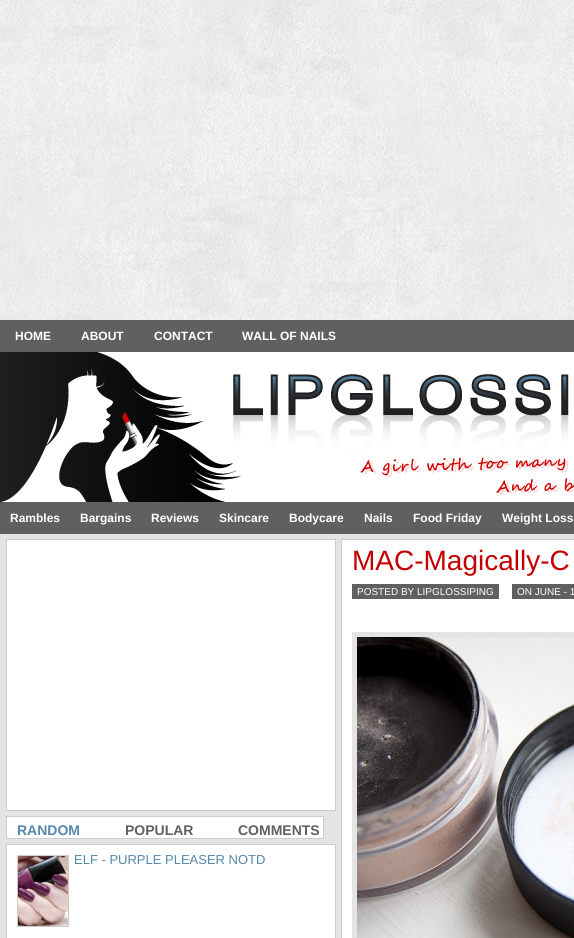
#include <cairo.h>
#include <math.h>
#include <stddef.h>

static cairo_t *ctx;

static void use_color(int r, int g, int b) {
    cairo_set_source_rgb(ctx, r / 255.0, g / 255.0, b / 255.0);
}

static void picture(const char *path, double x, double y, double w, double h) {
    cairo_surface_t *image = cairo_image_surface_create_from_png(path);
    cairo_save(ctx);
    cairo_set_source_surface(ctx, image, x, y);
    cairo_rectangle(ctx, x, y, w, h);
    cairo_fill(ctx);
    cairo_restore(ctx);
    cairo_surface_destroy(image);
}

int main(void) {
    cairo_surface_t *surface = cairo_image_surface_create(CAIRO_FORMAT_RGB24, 574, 938);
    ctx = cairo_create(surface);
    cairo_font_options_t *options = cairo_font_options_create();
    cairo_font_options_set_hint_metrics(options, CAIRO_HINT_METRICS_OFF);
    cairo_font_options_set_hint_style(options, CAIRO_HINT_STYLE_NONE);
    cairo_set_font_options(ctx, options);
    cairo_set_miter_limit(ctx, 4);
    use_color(255, 255, 255);
    cairo_paint(ctx);
    picture("img1.png", 0, 0, 574, 320);
    use_color(96, 96, 96);
    cairo_rectangle(ctx, 0, 320, 574, 214);
    cairo_fill(ctx);
    cairo_select_font_face(ctx, "Liberation Sans", CAIRO_FONT_SLANT_NORMAL, CAIRO_FONT_WEIGHT_BOLD);
    cairo_set_font_size(ctx, 12);
    use_color(255, 255, 255);
    cairo_move_to(ctx, 15, 340);
    cairo_show_text(ctx, "HOME");
    cairo_move_to(ctx, 81, 340);
    cairo_show_text(ctx, "ABOUT");
    cairo_move_to(ctx, 154, 340);
    cairo_show_text(ctx, "CONTACT");
    cairo_move_to(ctx, 242, 340);
    cairo_show_text(ctx, "WALL OF NAILS");
    picture("img2.png", 0, 352, 574, 150);
    cairo_move_to(ctx, 10, 522);
    cairo_show_text(ctx, "Rambles");
    cairo_move_to(ctx, 80, 522);
    cairo_show_text(ctx, "Bargains");
    cairo_move_to(ctx, 151, 522);
    cairo_show_text(ctx, "Reviews");
    cairo_move_to(ctx, 219, 522);
    cairo_show_text(ctx, "Skincare");
    cairo_move_to(ctx, 289, 522);
    cairo_show_text(ctx, "Bodycare");
    cairo_move_to(ctx, 364, 522);
    cairo_show_text(ctx, "Nails");
    cairo_move_to(ctx, 413, 522);
    cairo_show_text(ctx, "Food Friday");
    cairo_move_to(ctx, 502, 522);
    cairo_show_text(ctx, "Weight Loss");
    use_color(228, 228, 228);
    cairo_rectangle(ctx, 0, 534, 574, 404);
    cairo_fill(ctx);
    use_color(255, 255, 255);
    cairo_rectangle(ctx, 341.5, 539.5, 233, 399);
    cairo_fill_preserve(ctx);
    use_color(204, 204, 204);
    cairo_set_line_width(ctx, 1);
    cairo_stroke(ctx);
    cairo_select_font_face(ctx, "Liberation Sans", CAIRO_FONT_SLANT_NORMAL, CAIRO_FONT_WEIGHT_NORMAL);
    cairo_set_font_size(ctx, 28);
    use_color(197, 0, 0);
    cairo_move_to(ctx, 352, 570);
    cairo_show_text(ctx, "MAC-Magically-C");
    use_color(96, 96, 96);
    cairo_rectangle(ctx, 352, 584, 147, 15);
    cairo_fill(ctx);
    cairo_set_font_size(ctx, 10);
    use_color(255, 255, 255);
    cairo_move_to(ctx, 357, 595);
    cairo_show_text(ctx, "POSTED BY LIPGLOSSIPING");
    use_color(96, 96, 96);
    cairo_rectangle(ctx, 512, 584, 62, 15);
    cairo_fill(ctx);
    use_color(255, 255, 255);
    cairo_move_to(ctx, 517, 595);
    cairo_show_text(ctx, "ON JUNE - 1");
    use_color(228, 228, 228);
    cairo_rectangle(ctx, 352, 632, 222, 306);
    cairo_fill(ctx);
    picture("img3.png", 357, 637, 217, 301);
    use_color(255, 255, 255);
    cairo_rectangle(ctx, 6.5, 539.5, 329, 271);
    cairo_fill_preserve(ctx);
    use_color(204, 204, 204);
    cairo_stroke(ctx);
    use_color(255, 255, 255);
    cairo_rectangle(ctx, 6.5, 816.5, 317, 22);
    cairo_fill_preserve(ctx);
    use_color(204, 204, 204);
    cairo_stroke(ctx);
    cairo_select_font_face(ctx, "Liberation Sans", CAIRO_FONT_SLANT_NORMAL, CAIRO_FONT_WEIGHT_BOLD);
    cairo_set_font_size(ctx, 14);
    use_color(85, 136, 170);
    cairo_move_to(ctx, 17, 835);
    cairo_show_text(ctx, "RANDOM");
    use_color(96, 96, 96);
    cairo_move_to(ctx, 125, 835);
    cairo_show_text(ctx, "POPULAR");
    cairo_move_to(ctx, 238, 835);
    cairo_show_text(ctx, "COMMENTS");
    use_color(255, 255, 255);
    cairo_rectangle(ctx, 6.5, 844.5, 329, 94);
    cairo_fill_preserve(ctx);
    use_color(204, 204, 204);
    cairo_stroke(ctx);
    cairo_rectangle(ctx, 17, 855, 52, 72);
    cairo_fill(ctx);
    picture("img4.png", 18, 856, 50, 70);
    cairo_select_font_face(ctx, "Liberation Sans", CAIRO_FONT_SLANT_NORMAL, CAIRO_FONT_WEIGHT_NORMAL);
    cairo_set_font_size(ctx, 13);
    use_color(85, 136, 170);
    cairo_move_to(ctx, 74, 864);
    cairo_show_text(ctx, "ELF - PURPLE PLEASER NOTD");
    cairo_surface_write_to_png(surface, "result.png");
    cairo_font_options_destroy(options);
    cairo_destroy(ctx);
    cairo_surface_destroy(surface);
    return 0;
}
